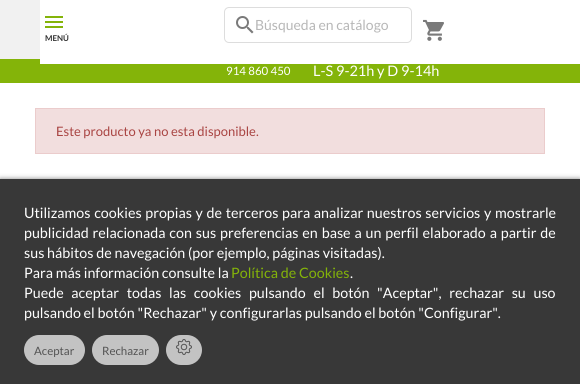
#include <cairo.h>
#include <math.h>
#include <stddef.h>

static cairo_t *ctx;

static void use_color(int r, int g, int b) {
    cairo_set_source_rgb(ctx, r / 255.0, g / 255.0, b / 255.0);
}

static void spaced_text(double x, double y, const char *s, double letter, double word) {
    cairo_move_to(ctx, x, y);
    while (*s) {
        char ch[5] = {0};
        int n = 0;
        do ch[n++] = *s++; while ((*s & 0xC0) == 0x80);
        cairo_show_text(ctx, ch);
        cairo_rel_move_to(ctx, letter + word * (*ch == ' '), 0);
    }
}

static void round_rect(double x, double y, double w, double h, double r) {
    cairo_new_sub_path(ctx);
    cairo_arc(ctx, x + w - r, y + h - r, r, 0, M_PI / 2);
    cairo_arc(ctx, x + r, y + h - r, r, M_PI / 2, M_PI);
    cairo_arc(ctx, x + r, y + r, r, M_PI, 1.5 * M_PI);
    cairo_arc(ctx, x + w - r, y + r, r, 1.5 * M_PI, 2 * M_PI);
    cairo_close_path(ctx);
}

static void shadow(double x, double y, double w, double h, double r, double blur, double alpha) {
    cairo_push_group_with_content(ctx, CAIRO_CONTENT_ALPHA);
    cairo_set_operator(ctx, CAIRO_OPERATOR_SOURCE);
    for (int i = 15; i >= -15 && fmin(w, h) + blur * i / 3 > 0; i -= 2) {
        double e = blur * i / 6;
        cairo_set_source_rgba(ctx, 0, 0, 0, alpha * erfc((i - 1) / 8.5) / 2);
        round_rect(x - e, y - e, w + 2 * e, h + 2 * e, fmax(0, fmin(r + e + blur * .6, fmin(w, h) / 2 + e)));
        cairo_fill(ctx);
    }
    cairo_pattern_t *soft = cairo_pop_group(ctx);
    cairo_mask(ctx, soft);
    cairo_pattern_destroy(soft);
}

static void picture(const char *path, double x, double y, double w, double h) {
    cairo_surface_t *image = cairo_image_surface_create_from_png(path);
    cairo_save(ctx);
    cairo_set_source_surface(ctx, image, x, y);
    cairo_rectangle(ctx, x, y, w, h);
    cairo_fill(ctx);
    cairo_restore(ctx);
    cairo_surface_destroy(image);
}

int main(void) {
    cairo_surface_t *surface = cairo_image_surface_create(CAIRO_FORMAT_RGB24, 580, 384);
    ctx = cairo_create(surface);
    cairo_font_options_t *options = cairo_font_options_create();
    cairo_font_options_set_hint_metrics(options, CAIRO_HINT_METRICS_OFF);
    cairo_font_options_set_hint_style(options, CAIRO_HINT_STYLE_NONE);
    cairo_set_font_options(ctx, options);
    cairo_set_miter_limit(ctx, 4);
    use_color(255, 255, 255);
    cairo_paint(ctx);
    use_color(241, 241, 241);
    cairo_rectangle(ctx, 0, 0, 40, 59);
    cairo_fill(ctx);
    use_color(132, 180, 9);
    cairo_rectangle(ctx, 0, 59, 580, 24);
    cairo_fill(ctx);
    use_color(255, 255, 255);
    cairo_rectangle(ctx, 40, 59, 540, 5);
    cairo_fill(ctx);
    round_rect(224.5, 7.5, 187, 35, 4.5);
    use_color(221, 221, 221);
    cairo_set_line_width(ctx, 1);
    cairo_stroke(ctx);
    picture("img1.png", 236, 16, 18, 18);
    cairo_select_font_face(ctx, "Lato", CAIRO_FONT_SLANT_NORMAL, CAIRO_FONT_WEIGHT_NORMAL);
    cairo_set_font_size(ctx, 14);
    use_color(183, 183, 183);
    cairo_move_to(ctx, 255, 30);
    cairo_show_text(ctx, "Búsqueda en catálogo");
    picture("img2.png", 423, 19, 21, 22);
    use_color(132, 180, 9);
    cairo_rectangle(ctx, 45, 16, 18, 2);
    cairo_fill(ctx);
    cairo_rectangle(ctx, 45, 21, 18, 2);
    cairo_fill(ctx);
    cairo_rectangle(ctx, 45, 26, 18, 2);
    cairo_fill(ctx);
    cairo_select_font_face(ctx, "Lato", CAIRO_FONT_SLANT_NORMAL, CAIRO_FONT_WEIGHT_BOLD);
    cairo_set_font_size(ctx, 8);
    use_color(51, 51, 51);
    cairo_move_to(ctx, 45, 41);
    cairo_show_text(ctx, "MENÚ");
    cairo_select_font_face(ctx, "Lato", CAIRO_FONT_SLANT_NORMAL, CAIRO_FONT_WEIGHT_NORMAL);
    cairo_set_font_size(ctx, 11.5);
    use_color(255, 255, 255);
    cairo_move_to(ctx, 226, 75);
    cairo_show_text(ctx, "914 860 450");
    cairo_set_font_size(ctx, 14.5);
    cairo_move_to(ctx, 313, 76);
    cairo_show_text(ctx, "L-S 9-21h y D 9-14h");
    use_color(242, 222, 222);
    cairo_rectangle(ctx, 35.5, 108.5, 509, 45);
    cairo_fill_preserve(ctx);
    use_color(235, 204, 204);
    cairo_stroke(ctx);
    cairo_set_font_size(ctx, 13);
    use_color(169, 68, 66);
    cairo_move_to(ctx, 56, 136);
    cairo_show_text(ctx, "Este producto ya no esta disponible.");
    use_color(0, 0, 0);
    shadow(0, 179, 580, 205, 0, 2.5, 0.5);
    use_color(56, 56, 56);
    cairo_rectangle(ctx, 0, 179, 580, 205);
    cairo_fill(ctx);
    cairo_set_font_size(ctx, 14.3);
    use_color(255, 255, 255);
    spaced_text(24, 218, "Utilizamos cookies propias y de terceros para analizar nuestros servicios y mostrarle", 0, 0.9);
    spaced_text(24, 238, "publicidad relacionada con sus preferencias en base a un perfil elaborado a partir de", 0, 1.1);
    cairo_move_to(ctx, 24, 258);
    cairo_show_text(ctx, "sus hábitos de navegación (por ejemplo, páginas visitadas).");
    cairo_move_to(ctx, 24, 278);
    cairo_show_text(ctx, "Para más información consulte la");
    use_color(132, 180, 9);
    cairo_move_to(ctx, 231, 278);
    cairo_show_text(ctx, "Política de Cookies");
    use_color(255, 255, 255);
    cairo_move_to(ctx, 350, 278);
    cairo_show_text(ctx, ".");
    spaced_text(24, 298, "Puede aceptar todas las cookies pulsando el botón \"Aceptar\", rechazar su uso", 0, 4.9);
    cairo_move_to(ctx, 24, 318);
    cairo_show_text(ctx, "pulsando el botón \"Rechazar\" y configurarlas pulsando el botón \"Configurar\".");
    use_color(195, 195, 195);
    round_rect(166, 335, 36, 30, 15);
    cairo_fill(ctx);
    round_rect(24, 335, 61, 30, 15);
    cairo_fill(ctx);
    cairo_set_font_size(ctx, 11.5);
    use_color(83, 83, 83);
    cairo_move_to(ctx, 34, 355);
    cairo_show_text(ctx, "Aceptar");
    use_color(195, 195, 195);
    round_rect(92, 335, 67, 30, 15);
    cairo_fill(ctx);
    use_color(83, 83, 83);
    cairo_move_to(ctx, 102, 355);
    cairo_show_text(ctx, "Rechazar");
    picture("img3.png", 176, 339, 16, 16);
    cairo_surface_write_to_png(surface, "result.png");
    cairo_font_options_destroy(options);
    cairo_destroy(ctx);
    cairo_surface_destroy(surface);
    return 0;
}
